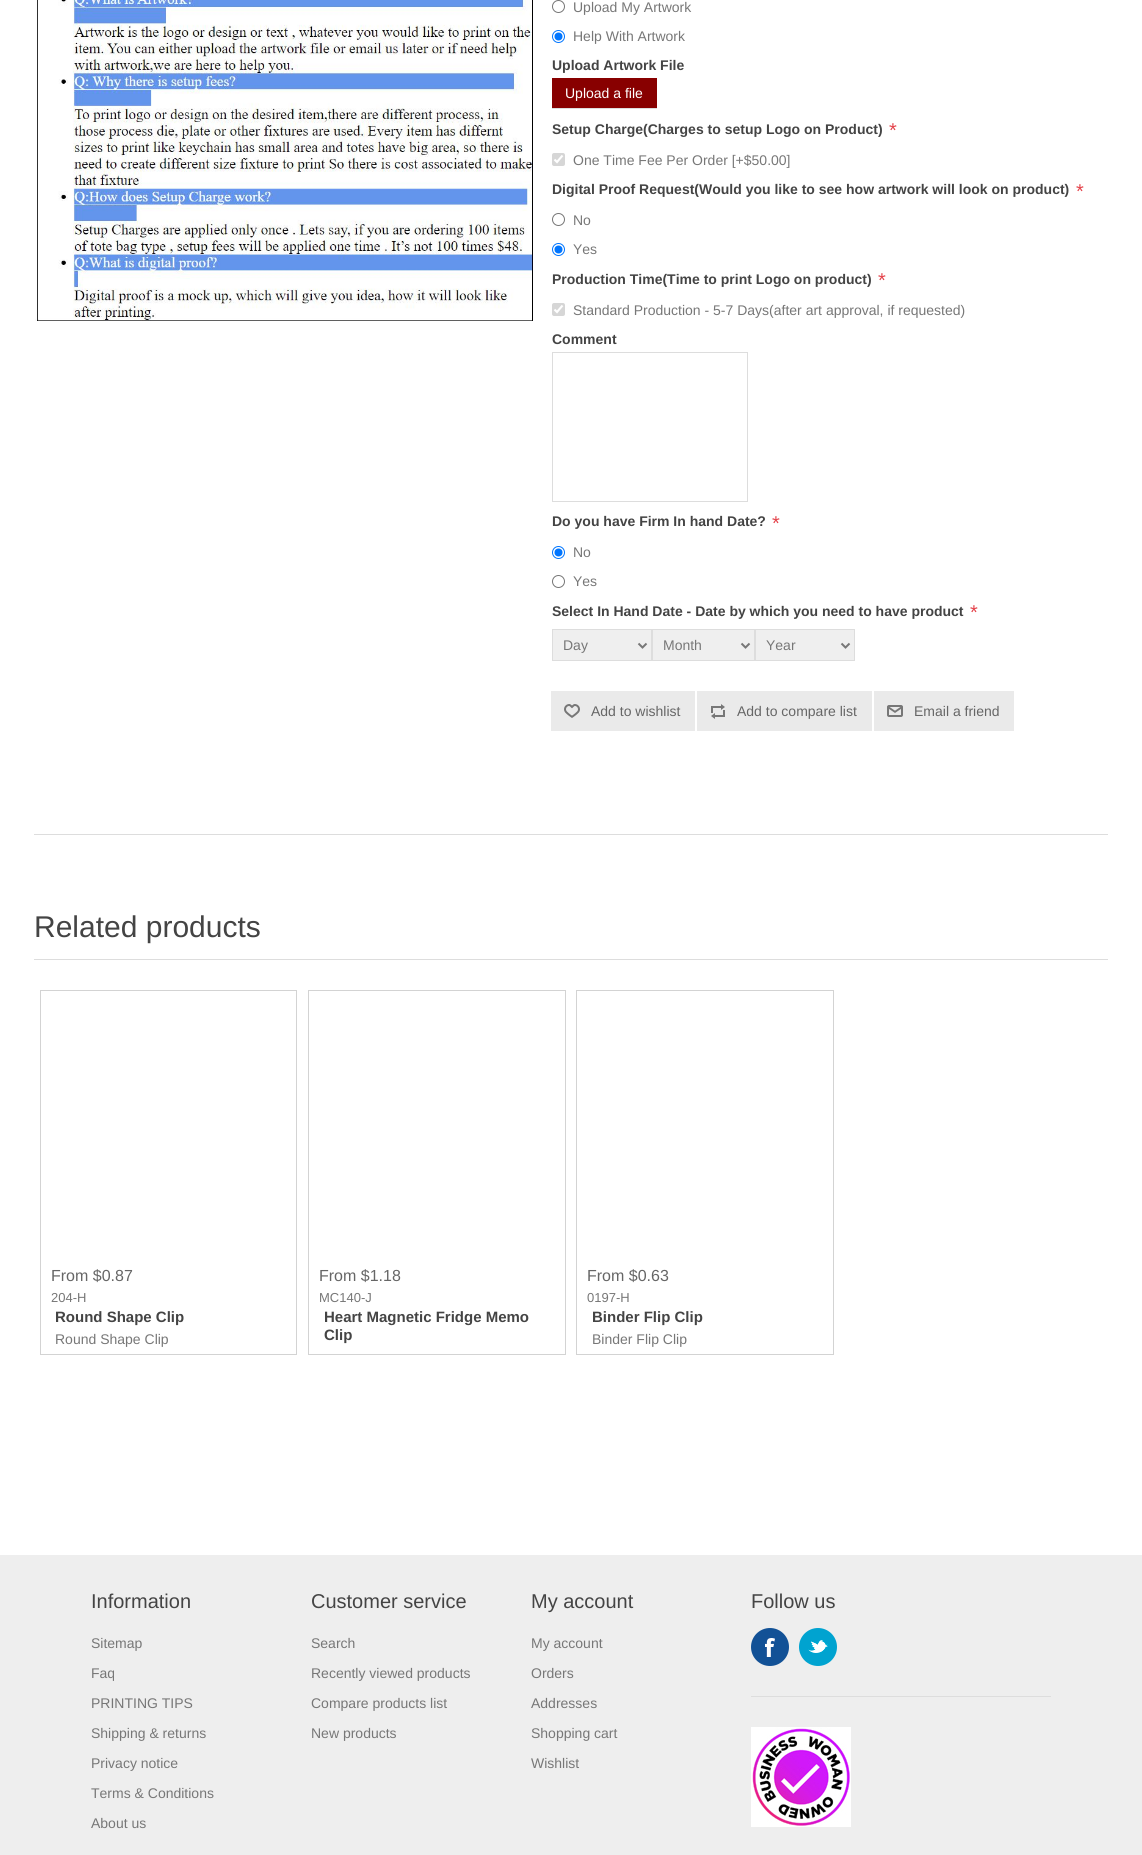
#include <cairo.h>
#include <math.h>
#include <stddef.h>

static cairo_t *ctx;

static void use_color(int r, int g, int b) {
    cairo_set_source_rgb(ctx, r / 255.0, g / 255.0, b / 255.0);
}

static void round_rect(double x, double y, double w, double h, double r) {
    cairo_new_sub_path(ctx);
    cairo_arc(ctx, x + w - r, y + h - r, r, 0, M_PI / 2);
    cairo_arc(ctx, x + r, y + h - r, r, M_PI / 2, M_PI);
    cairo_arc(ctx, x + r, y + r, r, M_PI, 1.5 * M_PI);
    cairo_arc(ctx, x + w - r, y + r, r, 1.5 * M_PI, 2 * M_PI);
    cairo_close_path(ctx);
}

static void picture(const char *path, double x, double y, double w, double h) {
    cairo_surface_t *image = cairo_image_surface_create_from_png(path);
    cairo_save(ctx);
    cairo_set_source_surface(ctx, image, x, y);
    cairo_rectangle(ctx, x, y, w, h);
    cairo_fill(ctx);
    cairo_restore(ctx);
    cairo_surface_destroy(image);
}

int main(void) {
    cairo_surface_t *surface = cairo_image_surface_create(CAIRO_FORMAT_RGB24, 1142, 1855);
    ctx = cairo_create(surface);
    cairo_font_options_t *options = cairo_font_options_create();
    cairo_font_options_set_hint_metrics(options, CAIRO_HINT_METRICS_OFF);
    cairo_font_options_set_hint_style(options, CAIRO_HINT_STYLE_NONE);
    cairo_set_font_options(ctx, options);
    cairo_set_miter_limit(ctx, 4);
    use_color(255, 255, 255);
    cairo_paint(ctx);
    use_color(221, 221, 221);
    cairo_rectangle(ctx, 34, 834, 1074, 1);
    cairo_fill(ctx);
    picture("img1.png", 35, 0, 498, 321);
    cairo_arc(ctx, 558.5, 6.5, 6, 0, 2 * M_PI);
    use_color(118, 118, 118);
    cairo_set_line_width(ctx, 1);
    cairo_stroke(ctx);
    cairo_select_font_face(ctx, "Liberation Sans", CAIRO_FONT_SLANT_NORMAL, CAIRO_FONT_WEIGHT_NORMAL);
    cairo_set_font_size(ctx, 14);
    use_color(119, 119, 119);
    cairo_move_to(ctx, 573, 12);
    cairo_show_text(ctx, "Upload My Artwork");
    cairo_new_path(ctx);
    cairo_arc(ctx, 558.5, 36.5, 6, 0, 2 * M_PI);
    use_color(0, 117, 255);
    cairo_stroke(ctx);
    cairo_arc(ctx, 558.5, 36.5, 4, 0, 2 * M_PI);
    cairo_fill(ctx);
    use_color(119, 119, 119);
    cairo_move_to(ctx, 573, 41);
    cairo_show_text(ctx, "Help With Artwork");
    cairo_select_font_face(ctx, "Liberation Sans", CAIRO_FONT_SLANT_NORMAL, CAIRO_FONT_WEIGHT_BOLD);
    use_color(68, 68, 68);
    cairo_move_to(ctx, 552, 70);
    cairo_show_text(ctx, "Upload Artwork File");
    use_color(136, 0, 0);
    cairo_rectangle(ctx, 552, 78, 105, 30);
    cairo_fill(ctx);
    use_color(221, 221, 221);
    cairo_rectangle(ctx, 552, 108, 105, 1);
    cairo_fill(ctx);
    cairo_select_font_face(ctx, "Liberation Sans", CAIRO_FONT_SLANT_NORMAL, CAIRO_FONT_WEIGHT_NORMAL);
    use_color(255, 255, 255);
    cairo_move_to(ctx, 565, 98);
    cairo_show_text(ctx, "Upload a file");
    cairo_select_font_face(ctx, "Liberation Sans", CAIRO_FONT_SLANT_NORMAL, CAIRO_FONT_WEIGHT_BOLD);
    use_color(68, 68, 68);
    cairo_move_to(ctx, 552, 134);
    cairo_show_text(ctx, "Setup Charge(Charges to setup Logo on Product)");
    cairo_select_font_face(ctx, "Liberation Sans", CAIRO_FONT_SLANT_NORMAL, CAIRO_FONT_WEIGHT_NORMAL);
    cairo_set_font_size(ctx, 20);
    use_color(228, 67, 75);
    cairo_move_to(ctx, 889, 137);
    cairo_show_text(ctx, "*");
    use_color(214, 214, 214);
    round_rect(552, 153, 13, 13, 2);
    cairo_fill(ctx);
    cairo_new_path(ctx);
    cairo_move_to(ctx, 554.5, 159.5);
    cairo_line_to(ctx, 557, 162);
    cairo_line_to(ctx, 562.5, 155.5);
    use_color(255, 255, 255);
    cairo_set_line_width(ctx, 2.1);
    cairo_stroke(ctx);
    cairo_set_font_size(ctx, 14);
    use_color(119, 119, 119);
    cairo_move_to(ctx, 573, 165);
    cairo_show_text(ctx, "One Time Fee Per Order [+$50.00]");
    cairo_select_font_face(ctx, "Liberation Sans", CAIRO_FONT_SLANT_NORMAL, CAIRO_FONT_WEIGHT_BOLD);
    use_color(68, 68, 68);
    cairo_move_to(ctx, 552, 194);
    cairo_show_text(ctx, "Digital Proof Request(Would you like to see how artwork will look on product)");
    cairo_select_font_face(ctx, "Liberation Sans", CAIRO_FONT_SLANT_NORMAL, CAIRO_FONT_WEIGHT_NORMAL);
    cairo_set_font_size(ctx, 20);
    use_color(228, 67, 75);
    cairo_move_to(ctx, 1076, 198);
    cairo_show_text(ctx, "*");
    cairo_new_path(ctx);
    cairo_arc(ctx, 558.5, 219.5, 6, 0, 2 * M_PI);
    use_color(118, 118, 118);
    cairo_set_line_width(ctx, 1);
    cairo_stroke(ctx);
    cairo_set_font_size(ctx, 14);
    use_color(119, 119, 119);
    cairo_move_to(ctx, 573, 225);
    cairo_show_text(ctx, "No");
    cairo_new_path(ctx);
    cairo_arc(ctx, 558.5, 249.5, 6, 0, 2 * M_PI);
    use_color(0, 117, 255);
    cairo_stroke(ctx);
    cairo_arc(ctx, 558.5, 249.5, 4, 0, 2 * M_PI);
    cairo_fill(ctx);
    use_color(119, 119, 119);
    cairo_move_to(ctx, 573, 254);
    cairo_show_text(ctx, "Yes");
    cairo_select_font_face(ctx, "Liberation Sans", CAIRO_FONT_SLANT_NORMAL, CAIRO_FONT_WEIGHT_BOLD);
    use_color(68, 68, 68);
    cairo_move_to(ctx, 552, 284);
    cairo_show_text(ctx, "Production Time(Time to print Logo on product)");
    cairo_select_font_face(ctx, "Liberation Sans", CAIRO_FONT_SLANT_NORMAL, CAIRO_FONT_WEIGHT_NORMAL);
    cairo_set_font_size(ctx, 20);
    use_color(228, 67, 75);
    cairo_move_to(ctx, 878, 287);
    cairo_show_text(ctx, "*");
    use_color(214, 214, 214);
    round_rect(552, 303, 13, 13, 2);
    cairo_fill(ctx);
    cairo_new_path(ctx);
    cairo_move_to(ctx, 554.5, 309.5);
    cairo_line_to(ctx, 557, 312);
    cairo_line_to(ctx, 562.5, 305.5);
    use_color(255, 255, 255);
    cairo_set_line_width(ctx, 2.1);
    cairo_stroke(ctx);
    cairo_set_font_size(ctx, 14);
    use_color(119, 119, 119);
    cairo_move_to(ctx, 573, 315);
    cairo_show_text(ctx, "Standard Production - 5-7 Days(after art approval, if requested)");
    cairo_select_font_face(ctx, "Liberation Sans", CAIRO_FONT_SLANT_NORMAL, CAIRO_FONT_WEIGHT_BOLD);
    use_color(68, 68, 68);
    cairo_move_to(ctx, 552, 344);
    cairo_show_text(ctx, "Comment");
    cairo_rectangle(ctx, 552.5, 352.5, 195, 149);
    use_color(221, 221, 221);
    cairo_set_line_width(ctx, 1);
    cairo_stroke(ctx);
    use_color(68, 68, 68);
    cairo_move_to(ctx, 552, 526);
    cairo_show_text(ctx, "Do you have Firm In hand Date?");
    cairo_select_font_face(ctx, "Liberation Sans", CAIRO_FONT_SLANT_NORMAL, CAIRO_FONT_WEIGHT_NORMAL);
    cairo_set_font_size(ctx, 20);
    use_color(228, 67, 75);
    cairo_move_to(ctx, 772, 530);
    cairo_show_text(ctx, "*");
    cairo_new_path(ctx);
    cairo_arc(ctx, 558.5, 552.5, 6, 0, 2 * M_PI);
    use_color(0, 117, 255);
    cairo_stroke(ctx);
    cairo_arc(ctx, 558.5, 552.5, 4, 0, 2 * M_PI);
    cairo_fill(ctx);
    cairo_set_font_size(ctx, 14);
    use_color(119, 119, 119);
    cairo_move_to(ctx, 573, 557);
    cairo_show_text(ctx, "No");
    cairo_new_path(ctx);
    cairo_arc(ctx, 558.5, 581.5, 6, 0, 2 * M_PI);
    use_color(118, 118, 118);
    cairo_stroke(ctx);
    use_color(119, 119, 119);
    cairo_move_to(ctx, 573, 586);
    cairo_show_text(ctx, "Yes");
    cairo_select_font_face(ctx, "Liberation Sans", CAIRO_FONT_SLANT_NORMAL, CAIRO_FONT_WEIGHT_BOLD);
    use_color(68, 68, 68);
    cairo_move_to(ctx, 552, 616);
    cairo_show_text(ctx, "Select In Hand Date - Date by which you need to have product");
    cairo_select_font_face(ctx, "Liberation Sans", CAIRO_FONT_SLANT_NORMAL, CAIRO_FONT_WEIGHT_NORMAL);
    cairo_set_font_size(ctx, 20);
    use_color(228, 67, 75);
    cairo_move_to(ctx, 970, 619);
    cairo_show_text(ctx, "*");
    use_color(239, 239, 239);
    cairo_rectangle(ctx, 552.5, 629.5, 99, 31);
    cairo_fill_preserve(ctx);
    use_color(221, 221, 221);
    cairo_stroke(ctx);
    cairo_new_path(ctx);
    cairo_move_to(ctx, 638.5, 643.5);
    cairo_line_to(ctx, 642.5, 647.5);
    cairo_line_to(ctx, 646.5, 643.5);
    use_color(119, 119, 119);
    cairo_set_line_width(ctx, 2);
    cairo_stroke(ctx);
    cairo_set_font_size(ctx, 14);
    cairo_move_to(ctx, 563, 650);
    cairo_show_text(ctx, "Day");
    use_color(239, 239, 239);
    cairo_rectangle(ctx, 652.5, 629.5, 102, 31);
    cairo_fill_preserve(ctx);
    use_color(221, 221, 221);
    cairo_set_line_width(ctx, 1);
    cairo_stroke(ctx);
    cairo_new_path(ctx);
    cairo_move_to(ctx, 741.5, 643.5);
    cairo_line_to(ctx, 745.5, 647.5);
    cairo_line_to(ctx, 749.5, 643.5);
    use_color(119, 119, 119);
    cairo_set_line_width(ctx, 2);
    cairo_stroke(ctx);
    cairo_move_to(ctx, 663, 650);
    cairo_show_text(ctx, "Month");
    use_color(239, 239, 239);
    cairo_rectangle(ctx, 755.5, 629.5, 99, 31);
    cairo_fill_preserve(ctx);
    use_color(221, 221, 221);
    cairo_set_line_width(ctx, 1);
    cairo_stroke(ctx);
    cairo_new_path(ctx);
    cairo_move_to(ctx, 841.5, 643.5);
    cairo_line_to(ctx, 845.5, 647.5);
    cairo_line_to(ctx, 849.5, 643.5);
    use_color(119, 119, 119);
    cairo_set_line_width(ctx, 2);
    cairo_stroke(ctx);
    cairo_move_to(ctx, 766, 650);
    cairo_show_text(ctx, "Year");
    use_color(234, 234, 234);
    cairo_rectangle(ctx, 551, 691, 144, 40);
    cairo_fill(ctx);
    picture("img2.png", 564, 704, 16, 14);
    use_color(102, 102, 102);
    cairo_move_to(ctx, 591, 716);
    cairo_show_text(ctx, "Add to wishlist");
    use_color(234, 234, 234);
    cairo_rectangle(ctx, 697, 691, 175, 40);
    cairo_fill(ctx);
    picture("img3.png", 711, 704, 14, 15);
    use_color(102, 102, 102);
    cairo_move_to(ctx, 737, 716);
    cairo_show_text(ctx, "Add to compare list");
    use_color(234, 234, 234);
    cairo_rectangle(ctx, 874, 691, 140, 40);
    cairo_fill(ctx);
    picture("img4.png", 887, 705, 16, 12);
    use_color(102, 102, 102);
    cairo_move_to(ctx, 914, 716);
    cairo_show_text(ctx, "Email a friend");
    use_color(221, 221, 221);
    cairo_rectangle(ctx, 34, 959, 1074, 1);
    cairo_fill(ctx);
    cairo_set_font_size(ctx, 30);
    use_color(68, 68, 68);
    cairo_move_to(ctx, 34, 937);
    cairo_show_text(ctx, "Related products");
    cairo_rectangle(ctx, 40.5, 990.5, 256, 364);
    use_color(211, 211, 211);
    cairo_set_line_width(ctx, 1);
    cairo_stroke(ctx);
    cairo_set_font_size(ctx, 16);
    use_color(102, 102, 102);
    cairo_move_to(ctx, 51, 1281);
    cairo_show_text(ctx, "From $0.87");
    cairo_set_font_size(ctx, 13);
    use_color(119, 119, 119);
    cairo_move_to(ctx, 51, 1302);
    cairo_show_text(ctx, "204-H");
    cairo_select_font_face(ctx, "Liberation Sans", CAIRO_FONT_SLANT_NORMAL, CAIRO_FONT_WEIGHT_BOLD);
    cairo_set_font_size(ctx, 15);
    use_color(68, 68, 68);
    cairo_move_to(ctx, 55, 1322);
    cairo_show_text(ctx, "Round Shape Clip");
    cairo_select_font_face(ctx, "Liberation Sans", CAIRO_FONT_SLANT_NORMAL, CAIRO_FONT_WEIGHT_NORMAL);
    cairo_set_font_size(ctx, 14);
    use_color(119, 119, 119);
    cairo_move_to(ctx, 55, 1344);
    cairo_show_text(ctx, "Round Shape Clip");
    cairo_rectangle(ctx, 308.5, 990.5, 257, 364);
    use_color(211, 211, 211);
    cairo_stroke(ctx);
    cairo_set_font_size(ctx, 16);
    use_color(102, 102, 102);
    cairo_move_to(ctx, 319, 1281);
    cairo_show_text(ctx, "From $1.18");
    cairo_set_font_size(ctx, 13);
    use_color(119, 119, 119);
    cairo_move_to(ctx, 319, 1302);
    cairo_show_text(ctx, "MC140-J");
    cairo_select_font_face(ctx, "Liberation Sans", CAIRO_FONT_SLANT_NORMAL, CAIRO_FONT_WEIGHT_BOLD);
    cairo_set_font_size(ctx, 15);
    use_color(68, 68, 68);
    cairo_move_to(ctx, 324, 1322);
    cairo_show_text(ctx, "Heart Magnetic Fridge Memo");
    cairo_move_to(ctx, 324, 1340);
    cairo_show_text(ctx, "Clip");
    cairo_rectangle(ctx, 576.5, 990.5, 257, 364);
    use_color(211, 211, 211);
    cairo_stroke(ctx);
    cairo_select_font_face(ctx, "Liberation Sans", CAIRO_FONT_SLANT_NORMAL, CAIRO_FONT_WEIGHT_NORMAL);
    cairo_set_font_size(ctx, 16);
    use_color(102, 102, 102);
    cairo_move_to(ctx, 587, 1281);
    cairo_show_text(ctx, "From $0.63");
    cairo_set_font_size(ctx, 13);
    use_color(119, 119, 119);
    cairo_move_to(ctx, 587, 1302);
    cairo_show_text(ctx, "0197-H");
    cairo_select_font_face(ctx, "Liberation Sans", CAIRO_FONT_SLANT_NORMAL, CAIRO_FONT_WEIGHT_BOLD);
    cairo_set_font_size(ctx, 15);
    use_color(68, 68, 68);
    cairo_move_to(ctx, 592, 1322);
    cairo_show_text(ctx, "Binder Flip Clip");
    cairo_select_font_face(ctx, "Liberation Sans", CAIRO_FONT_SLANT_NORMAL, CAIRO_FONT_WEIGHT_NORMAL);
    cairo_set_font_size(ctx, 14);
    use_color(119, 119, 119);
    cairo_move_to(ctx, 592, 1344);
    cairo_show_text(ctx, "Binder Flip Clip");
    use_color(238, 238, 238);
    cairo_rectangle(ctx, 0, 1555, 1142, 300);
    cairo_fill(ctx);
    cairo_set_font_size(ctx, 20);
    use_color(68, 68, 68);
    cairo_move_to(ctx, 91, 1608);
    cairo_show_text(ctx, "Information");
    cairo_set_font_size(ctx, 14);
    use_color(119, 119, 119);
    cairo_move_to(ctx, 91, 1648);
    cairo_show_text(ctx, "Sitemap");
    cairo_move_to(ctx, 91, 1678);
    cairo_show_text(ctx, "Faq");
    cairo_move_to(ctx, 91, 1708);
    cairo_show_text(ctx, "PRINTING TIPS");
    cairo_move_to(ctx, 91, 1738);
    cairo_show_text(ctx, "Shipping & returns");
    cairo_move_to(ctx, 91, 1768);
    cairo_show_text(ctx, "Privacy notice");
    cairo_move_to(ctx, 91, 1798);
    cairo_show_text(ctx, "Terms & Conditions");
    cairo_move_to(ctx, 91, 1828);
    cairo_show_text(ctx, "About us");
    cairo_set_font_size(ctx, 20);
    use_color(68, 68, 68);
    cairo_move_to(ctx, 311, 1608);
    cairo_show_text(ctx, "Customer service");
    cairo_set_font_size(ctx, 14);
    use_color(119, 119, 119);
    cairo_move_to(ctx, 311, 1648);
    cairo_show_text(ctx, "Search");
    cairo_move_to(ctx, 311, 1678);
    cairo_show_text(ctx, "Recently viewed products");
    cairo_move_to(ctx, 311, 1708);
    cairo_show_text(ctx, "Compare products list");
    cairo_move_to(ctx, 311, 1738);
    cairo_show_text(ctx, "New products");
    cairo_set_font_size(ctx, 20);
    use_color(68, 68, 68);
    cairo_move_to(ctx, 531, 1608);
    cairo_show_text(ctx, "My account");
    cairo_set_font_size(ctx, 14);
    use_color(119, 119, 119);
    cairo_move_to(ctx, 531, 1648);
    cairo_show_text(ctx, "My account");
    cairo_move_to(ctx, 531, 1678);
    cairo_show_text(ctx, "Orders");
    cairo_move_to(ctx, 531, 1708);
    cairo_show_text(ctx, "Addresses");
    cairo_move_to(ctx, 531, 1738);
    cairo_show_text(ctx, "Shopping cart");
    cairo_move_to(ctx, 531, 1768);
    cairo_show_text(ctx, "Wishlist");
    cairo_set_font_size(ctx, 20);
    use_color(68, 68, 68);
    cairo_move_to(ctx, 751, 1608);
    cairo_show_text(ctx, "Follow us");
    use_color(221, 221, 221);
    cairo_rectangle(ctx, 751, 1696, 300, 1);
    cairo_fill(ctx);
    picture("img5.png", 751, 1628, 38, 38);
    picture("img6.png", 799, 1628, 38, 38);
    picture("img7.png", 751, 1727, 100, 100);
    cairo_surface_write_to_png(surface, "result.png");
    cairo_font_options_destroy(options);
    cairo_destroy(ctx);
    cairo_surface_destroy(surface);
    return 0;
}
